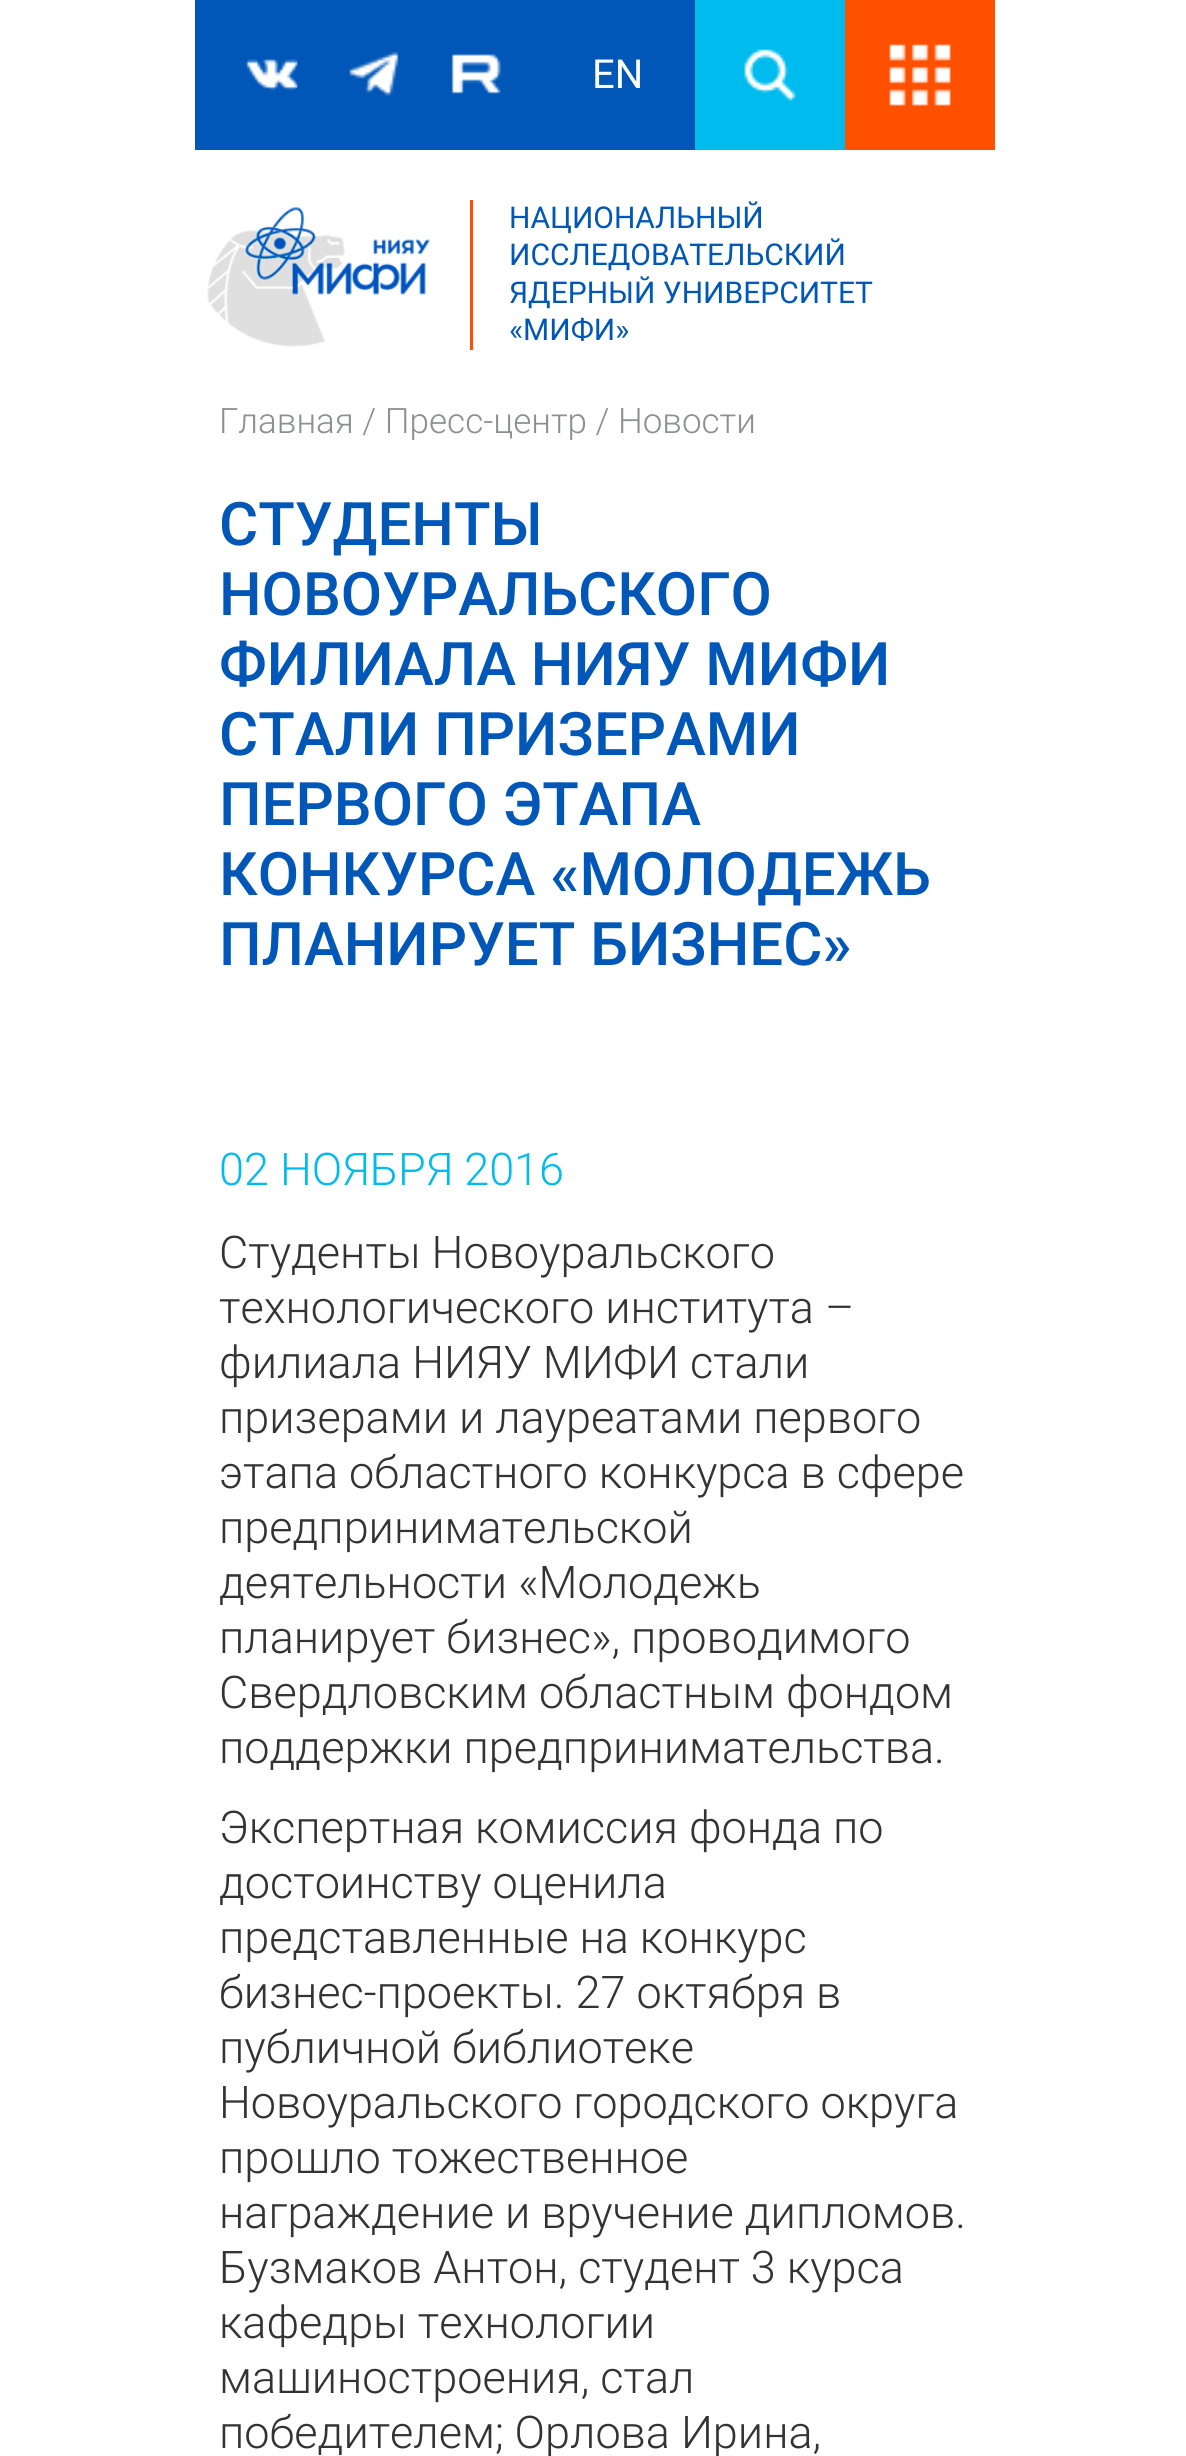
#include <cairo.h>
#include <math.h>
#include <stddef.h>

static cairo_t *ctx;

static void use_color(int r, int g, int b) {
    cairo_set_source_rgb(ctx, r / 255.0, g / 255.0, b / 255.0);
}

static void picture(const char *path, double x, double y, double w, double h) {
    cairo_surface_t *image = cairo_image_surface_create_from_png(path);
    cairo_save(ctx);
    cairo_set_source_surface(ctx, image, x, y);
    cairo_rectangle(ctx, x, y, w, h);
    cairo_fill(ctx);
    cairo_restore(ctx);
    cairo_surface_destroy(image);
}

int main(void) {
    cairo_surface_t *surface = cairo_image_surface_create(CAIRO_FORMAT_RGB24, 1186, 2456);
    ctx = cairo_create(surface);
    cairo_font_options_t *options = cairo_font_options_create();
    cairo_font_options_set_hint_metrics(options, CAIRO_HINT_METRICS_OFF);
    cairo_font_options_set_hint_style(options, CAIRO_HINT_STYLE_NONE);
    cairo_set_font_options(ctx, options);
    cairo_set_miter_limit(ctx, 4);
    use_color(255, 255, 255);
    cairo_paint(ctx);
    use_color(0, 87, 184);
    cairo_rectangle(ctx, 195, 0, 500, 150);
    cairo_fill(ctx);
    picture("img1.png", 245, 59, 53, 32);
    picture("img2.png", 349, 52, 50, 44);
    picture("img3.png", 451, 54, 50, 40);
    cairo_select_font_face(ctx, "Roboto", CAIRO_FONT_SLANT_NORMAL, CAIRO_FONT_WEIGHT_NORMAL);
    cairo_set_font_size(ctx, 40);
    use_color(255, 255, 255);
    cairo_move_to(ctx, 592, 88);
    cairo_show_text(ctx, "EN");
    use_color(0, 187, 238);
    cairo_rectangle(ctx, 695, 0, 150, 150);
    cairo_fill(ctx);
    picture("img4.png", 744, 49, 52, 52);
    use_color(255, 80, 0);
    cairo_rectangle(ctx, 845, 0, 150, 150);
    cairo_fill(ctx);
    picture("img5.png", 889, 44, 62, 62);
    picture("img6.png", 207, 207, 223, 140);
    cairo_rectangle(ctx, 470, 200, 3, 150);
    cairo_fill(ctx);
    cairo_set_font_size(ctx, 30);
    use_color(0, 87, 184);
    cairo_move_to(ctx, 509, 228);
    cairo_show_text(ctx, "НАЦИОНАЛЬНЫЙ");
    cairo_move_to(ctx, 509, 265);
    cairo_show_text(ctx, "ИССЛЕДОВАТЕЛЬСКИЙ");
    cairo_move_to(ctx, 509, 303);
    cairo_show_text(ctx, "ЯДЕРНЫЙ УНИВЕРСИТЕТ");
    cairo_move_to(ctx, 509, 340);
    cairo_show_text(ctx, "«МИФИ»");
    cairo_select_font_face(ctx, "Roboto Light", CAIRO_FONT_SLANT_NORMAL, CAIRO_FONT_WEIGHT_NORMAL);
    cairo_set_font_size(ctx, 35);
    use_color(142, 143, 145);
    cairo_move_to(ctx, 219, 433);
    cairo_show_text(ctx, "Главная / Пресс-центр / Новости");
    cairo_select_font_face(ctx, "Roboto Medium", CAIRO_FONT_SLANT_NORMAL, CAIRO_FONT_WEIGHT_NORMAL);
    cairo_set_font_size(ctx, 60);
    use_color(0, 87, 184);
    cairo_move_to(ctx, 219, 545);
    cairo_show_text(ctx, "СТУДЕНТЫ");
    cairo_move_to(ctx, 219, 615);
    cairo_show_text(ctx, "НОВОУРАЛЬСКОГО");
    cairo_move_to(ctx, 219, 685);
    cairo_show_text(ctx, "ФИЛИАЛА НИЯУ МИФИ");
    cairo_move_to(ctx, 219, 755);
    cairo_show_text(ctx, "СТАЛИ ПРИЗЕРАМИ");
    cairo_move_to(ctx, 219, 825);
    cairo_show_text(ctx, "ПЕРВОГО ЭТАПА");
    cairo_move_to(ctx, 219, 895);
    cairo_show_text(ctx, "КОНКУРСА «МОЛОДЕЖЬ");
    cairo_move_to(ctx, 219, 965);
    cairo_show_text(ctx, "ПЛАНИРУЕТ БИЗНЕС»");
    cairo_select_font_face(ctx, "Roboto Light", CAIRO_FONT_SLANT_NORMAL, CAIRO_FONT_WEIGHT_NORMAL);
    cairo_set_font_size(ctx, 45);
    use_color(0, 187, 238);
    cairo_move_to(ctx, 219, 1185);
    cairo_show_text(ctx, "02 НОЯБРЯ 2016");
    use_color(51, 51, 51);
    cairo_move_to(ctx, 219, 1268);
    cairo_show_text(ctx, "Студенты Новоуральского");
    cairo_move_to(ctx, 219, 1323);
    cairo_show_text(ctx, "технологического института –");
    cairo_move_to(ctx, 219, 1378);
    cairo_show_text(ctx, "филиала НИЯУ МИФИ стали");
    cairo_move_to(ctx, 219, 1433);
    cairo_show_text(ctx, "призерами и лауреатами первого");
    cairo_move_to(ctx, 219, 1488);
    cairo_show_text(ctx, "этапа областного конкурса в сфере");
    cairo_move_to(ctx, 219, 1543);
    cairo_show_text(ctx, "предпринимательской");
    cairo_move_to(ctx, 219, 1598);
    cairo_show_text(ctx, "деятельности «Молодежь");
    cairo_move_to(ctx, 219, 1653);
    cairo_show_text(ctx, "планирует бизнес», проводимого");
    cairo_move_to(ctx, 219, 1708);
    cairo_show_text(ctx, "Свердловским областным фондом");
    cairo_move_to(ctx, 219, 1763);
    cairo_show_text(ctx, "поддержки предпринимательства.");
    cairo_move_to(ctx, 219, 1843);
    cairo_show_text(ctx, "Экспертная комиссия фонда по");
    cairo_move_to(ctx, 219, 1898);
    cairo_show_text(ctx, "достоинству оценила");
    cairo_move_to(ctx, 219, 1953);
    cairo_show_text(ctx, "представленные на конкурс");
    cairo_move_to(ctx, 219, 2008);
    cairo_show_text(ctx, "бизнес-проекты. 27 октября в");
    cairo_move_to(ctx, 219, 2063);
    cairo_show_text(ctx, "публичной библиотеке");
    cairo_move_to(ctx, 219, 2118);
    cairo_show_text(ctx, "Новоуральского городского округа");
    cairo_move_to(ctx, 219, 2173);
    cairo_show_text(ctx, "прошло тожественное");
    cairo_move_to(ctx, 219, 2228);
    cairo_show_text(ctx, "награждение и вручение дипломов.");
    cairo_move_to(ctx, 219, 2283);
    cairo_show_text(ctx, "Бузмаков Антон, студент 3 курса");
    cairo_move_to(ctx, 219, 2338);
    cairo_show_text(ctx, "кафедры технологии");
    cairo_move_to(ctx, 219, 2393);
    cairo_show_text(ctx, "машиностроения, стал");
    cairo_move_to(ctx, 219, 2448);
    cairo_show_text(ctx, "победителем; Орлова Ирина,");
    cairo_surface_write_to_png(surface, "result.png");
    cairo_font_options_destroy(options);
    cairo_destroy(ctx);
    cairo_surface_destroy(surface);
    return 0;
}
